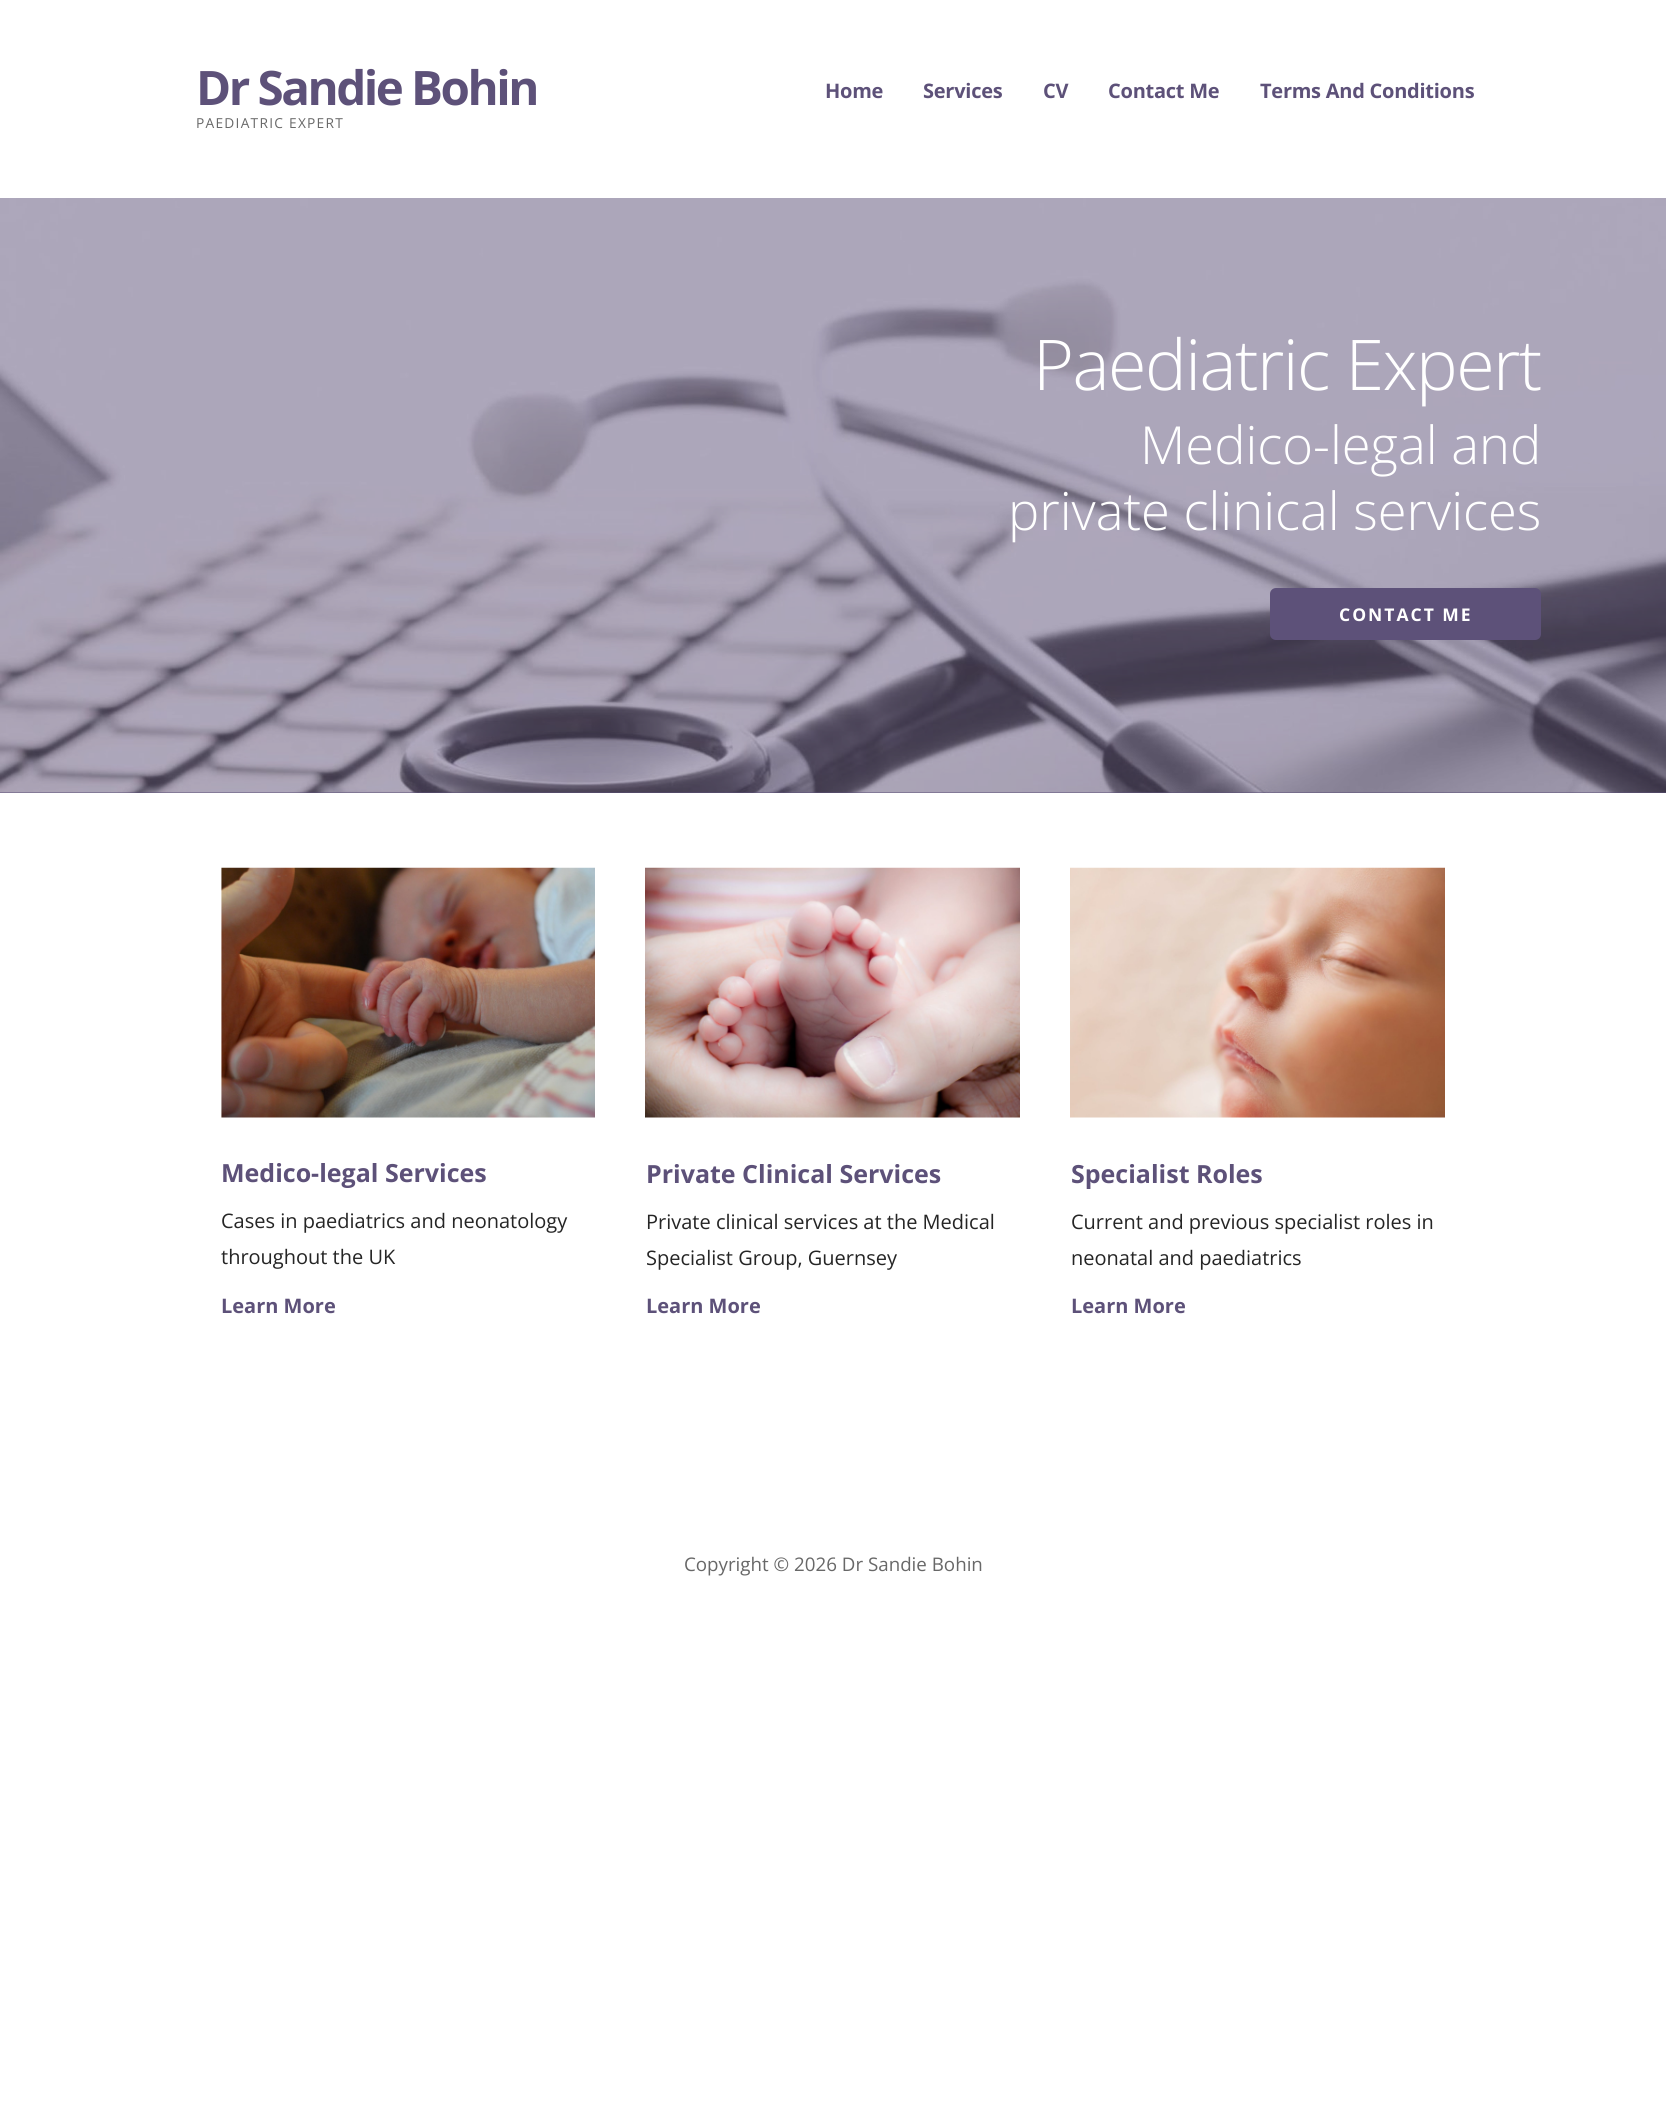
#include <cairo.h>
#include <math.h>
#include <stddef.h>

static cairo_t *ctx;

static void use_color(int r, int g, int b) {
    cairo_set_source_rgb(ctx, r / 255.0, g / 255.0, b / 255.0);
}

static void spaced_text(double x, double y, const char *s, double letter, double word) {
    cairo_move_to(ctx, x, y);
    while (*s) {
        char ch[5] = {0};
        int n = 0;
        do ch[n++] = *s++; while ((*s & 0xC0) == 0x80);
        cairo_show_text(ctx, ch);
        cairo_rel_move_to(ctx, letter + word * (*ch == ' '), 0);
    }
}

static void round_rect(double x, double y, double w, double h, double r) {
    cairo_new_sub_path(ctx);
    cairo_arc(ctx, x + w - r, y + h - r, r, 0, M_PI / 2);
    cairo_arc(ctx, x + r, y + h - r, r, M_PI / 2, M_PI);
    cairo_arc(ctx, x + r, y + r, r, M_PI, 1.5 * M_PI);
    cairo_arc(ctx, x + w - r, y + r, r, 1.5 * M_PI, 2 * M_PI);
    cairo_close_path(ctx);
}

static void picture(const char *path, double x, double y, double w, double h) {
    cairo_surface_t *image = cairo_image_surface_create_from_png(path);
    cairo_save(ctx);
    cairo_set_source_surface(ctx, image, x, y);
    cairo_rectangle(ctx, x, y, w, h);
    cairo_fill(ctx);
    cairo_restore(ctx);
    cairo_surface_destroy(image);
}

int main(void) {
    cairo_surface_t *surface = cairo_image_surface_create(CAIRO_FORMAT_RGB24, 1666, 2110);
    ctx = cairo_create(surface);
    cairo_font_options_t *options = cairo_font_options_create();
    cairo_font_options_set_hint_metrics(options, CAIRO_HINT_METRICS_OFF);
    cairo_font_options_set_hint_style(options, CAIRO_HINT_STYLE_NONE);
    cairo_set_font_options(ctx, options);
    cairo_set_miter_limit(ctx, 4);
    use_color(255, 255, 255);
    cairo_paint(ctx);
    cairo_select_font_face(ctx, "Open Sans", CAIRO_FONT_SLANT_NORMAL, CAIRO_FONT_WEIGHT_BOLD);
    cairo_set_font_size(ctx, 47.5);
    use_color(93, 81, 121);
    spaced_text(196, 105, "Dr Sandie Bohin", -2.5, 0);
    cairo_select_font_face(ctx, "Open Sans", CAIRO_FONT_SLANT_NORMAL, CAIRO_FONT_WEIGHT_NORMAL);
    cairo_set_font_size(ctx, 13.75);
    use_color(104, 104, 104);
    spaced_text(196, 128, "PAEDIATRIC EXPERT", 1.25, 0);
    cairo_select_font_face(ctx, "Open Sans", CAIRO_FONT_SLANT_NORMAL, CAIRO_FONT_WEIGHT_BOLD);
    cairo_set_font_size(ctx, 20);
    use_color(93, 81, 121);
    spaced_text(825, 98, "Home", -0.25, 0);
    spaced_text(923, 98, "Services", -0.25, 0);
    spaced_text(1043, 98, "CV", -0.25, 0);
    spaced_text(1108, 98, "Contact Me", -0.25, 0);
    spaced_text(1260, 98, "Terms And Conditions", -0.25, 0);
    cairo_rectangle(ctx, 0, 792, 1666, 1);
    cairo_fill(ctx);
    picture("img1.png", 0, 198, 1666, 595);
    cairo_select_font_face(ctx, "Open Sans Light", CAIRO_FONT_SLANT_NORMAL, CAIRO_FONT_WEIGHT_NORMAL);
    cairo_set_font_size(ctx, 70);
    use_color(255, 255, 255);
    spaced_text(1033, 390, "Paediatric Expert", -1.5, 0);
    cairo_set_font_size(ctx, 52.5);
    cairo_move_to(ctx, 1140, 464);
    cairo_show_text(ctx, "Medico-legal and");
    cairo_move_to(ctx, 1008, 530);
    cairo_show_text(ctx, "private clinical services");
    use_color(93, 81, 121);
    round_rect(1270, 588, 271, 52, 6);
    cairo_fill(ctx);
    cairo_select_font_face(ctx, "Open Sans", CAIRO_FONT_SLANT_NORMAL, CAIRO_FONT_WEIGHT_BOLD);
    cairo_set_font_size(ctx, 17.5);
    use_color(255, 255, 255);
    spaced_text(1339, 621, "CONTACT ME", 2, 0);
    picture("img2.png", 221, 867, 374, 251);
    cairo_set_font_size(ctx, 25);
    use_color(93, 81, 121);
    cairo_move_to(ctx, 221, 1182);
    cairo_show_text(ctx, "Medico-legal Services");
    cairo_select_font_face(ctx, "Open Sans", CAIRO_FONT_SLANT_NORMAL, CAIRO_FONT_WEIGHT_NORMAL);
    cairo_set_font_size(ctx, 20);
    use_color(37, 37, 37);
    cairo_move_to(ctx, 221, 1228);
    cairo_show_text(ctx, "Cases in paediatrics and neonatology");
    cairo_move_to(ctx, 221, 1264);
    cairo_show_text(ctx, "throughout the UK");
    cairo_select_font_face(ctx, "Open Sans", CAIRO_FONT_SLANT_NORMAL, CAIRO_FONT_WEIGHT_BOLD);
    use_color(93, 81, 121);
    cairo_move_to(ctx, 221, 1313);
    cairo_show_text(ctx, "Learn More");
    picture("img3.png", 645, 867, 375, 251);
    cairo_set_font_size(ctx, 25);
    cairo_move_to(ctx, 646, 1183);
    cairo_show_text(ctx, "Private Clinical Services");
    cairo_select_font_face(ctx, "Open Sans", CAIRO_FONT_SLANT_NORMAL, CAIRO_FONT_WEIGHT_NORMAL);
    cairo_set_font_size(ctx, 20);
    use_color(37, 37, 37);
    cairo_move_to(ctx, 646, 1229);
    cairo_show_text(ctx, "Private clinical services at the Medical");
    cairo_move_to(ctx, 646, 1265);
    cairo_show_text(ctx, "Specialist Group, Guernsey");
    cairo_select_font_face(ctx, "Open Sans", CAIRO_FONT_SLANT_NORMAL, CAIRO_FONT_WEIGHT_BOLD);
    use_color(93, 81, 121);
    cairo_move_to(ctx, 646, 1313);
    cairo_show_text(ctx, "Learn More");
    picture("img4.png", 1070, 867, 375, 251);
    cairo_set_font_size(ctx, 25);
    cairo_move_to(ctx, 1071, 1183);
    cairo_show_text(ctx, "Specialist Roles");
    cairo_select_font_face(ctx, "Open Sans", CAIRO_FONT_SLANT_NORMAL, CAIRO_FONT_WEIGHT_NORMAL);
    cairo_set_font_size(ctx, 20);
    use_color(37, 37, 37);
    cairo_move_to(ctx, 1071, 1229);
    cairo_show_text(ctx, "Current and previous specialist roles in");
    cairo_move_to(ctx, 1071, 1265);
    cairo_show_text(ctx, "neonatal and paediatrics");
    cairo_select_font_face(ctx, "Open Sans", CAIRO_FONT_SLANT_NORMAL, CAIRO_FONT_WEIGHT_BOLD);
    use_color(93, 81, 121);
    cairo_move_to(ctx, 1071, 1313);
    cairo_show_text(ctx, "Learn More");
    cairo_select_font_face(ctx, "Open Sans", CAIRO_FONT_SLANT_NORMAL, CAIRO_FONT_WEIGHT_NORMAL);
    cairo_set_font_size(ctx, 18.75);
    use_color(104, 104, 104);
    cairo_move_to(ctx, 684, 1571);
    cairo_show_text(ctx, "Copyright © 2026 Dr Sandie Bohin");
    cairo_surface_write_to_png(surface, "result.png");
    cairo_font_options_destroy(options);
    cairo_destroy(ctx);
    cairo_surface_destroy(surface);
    return 0;
}
